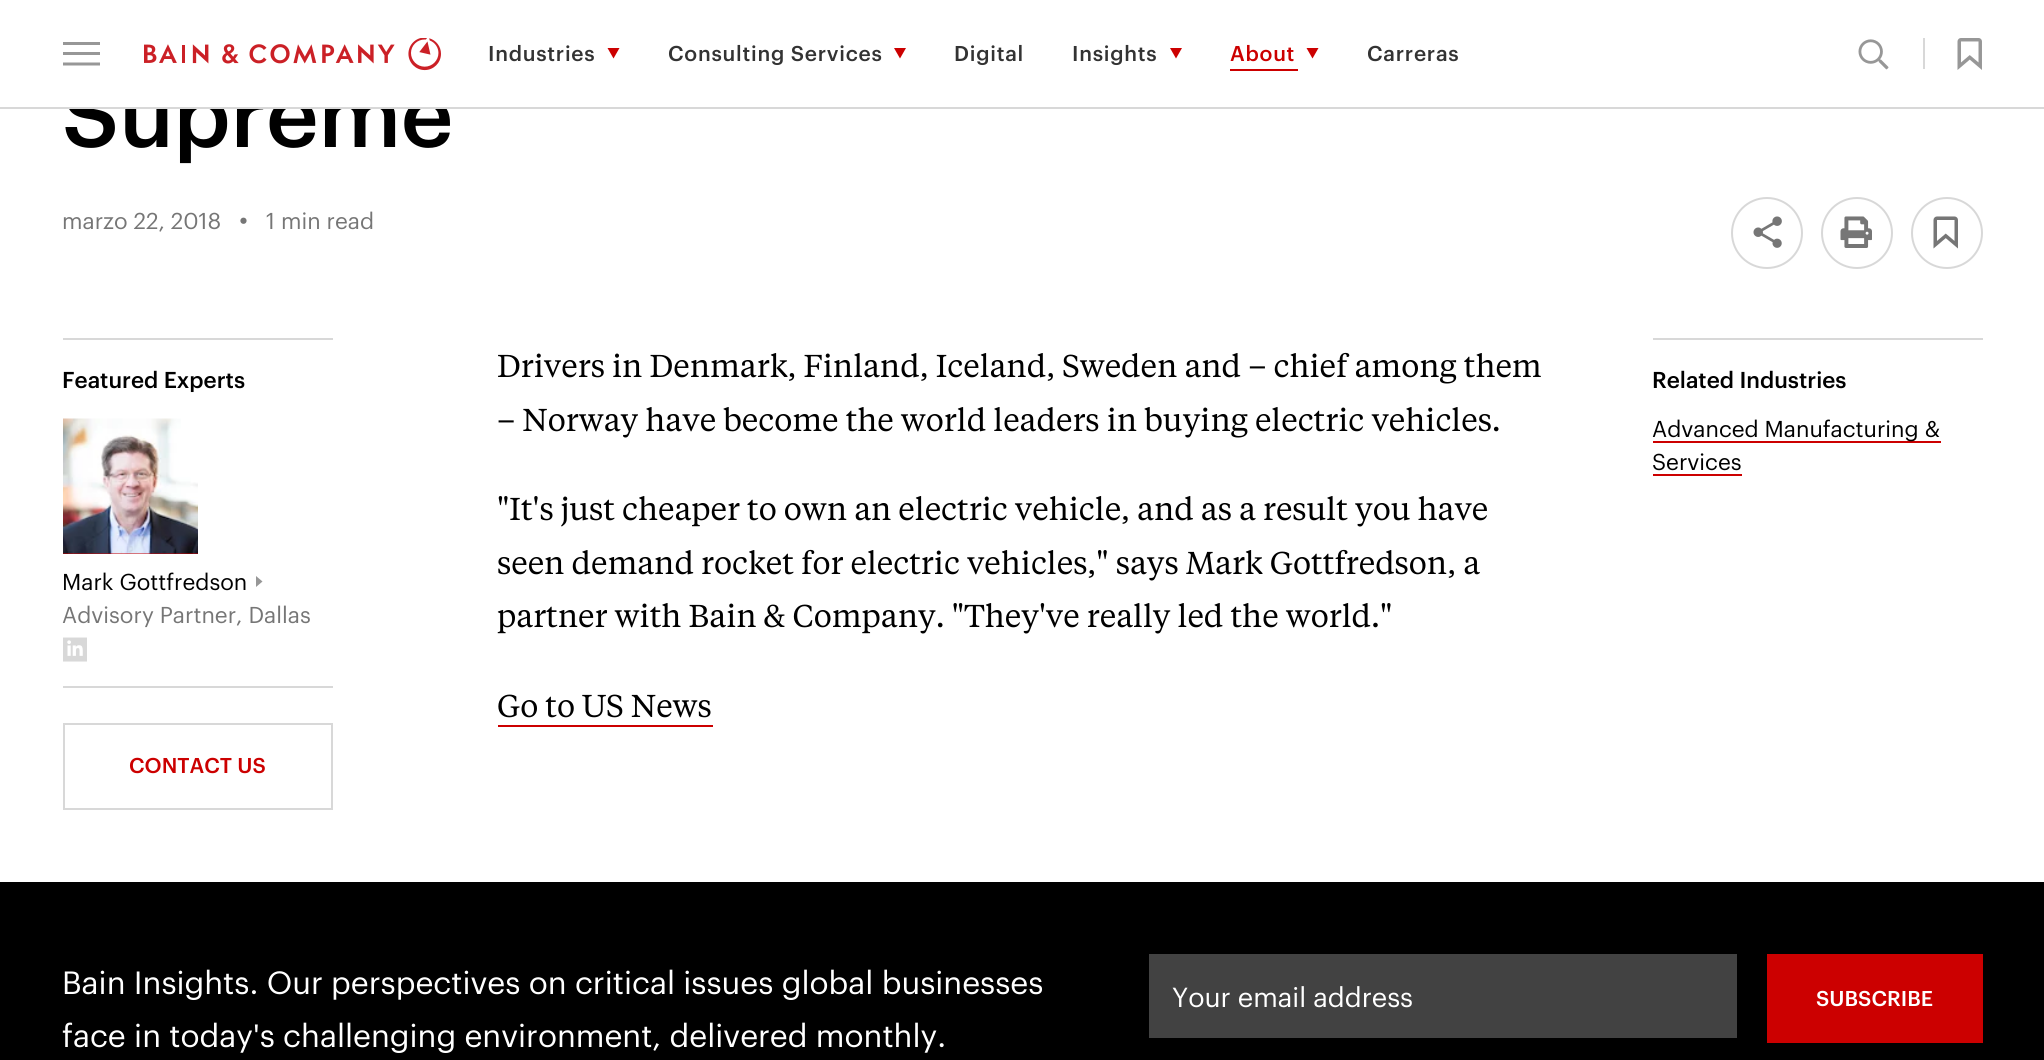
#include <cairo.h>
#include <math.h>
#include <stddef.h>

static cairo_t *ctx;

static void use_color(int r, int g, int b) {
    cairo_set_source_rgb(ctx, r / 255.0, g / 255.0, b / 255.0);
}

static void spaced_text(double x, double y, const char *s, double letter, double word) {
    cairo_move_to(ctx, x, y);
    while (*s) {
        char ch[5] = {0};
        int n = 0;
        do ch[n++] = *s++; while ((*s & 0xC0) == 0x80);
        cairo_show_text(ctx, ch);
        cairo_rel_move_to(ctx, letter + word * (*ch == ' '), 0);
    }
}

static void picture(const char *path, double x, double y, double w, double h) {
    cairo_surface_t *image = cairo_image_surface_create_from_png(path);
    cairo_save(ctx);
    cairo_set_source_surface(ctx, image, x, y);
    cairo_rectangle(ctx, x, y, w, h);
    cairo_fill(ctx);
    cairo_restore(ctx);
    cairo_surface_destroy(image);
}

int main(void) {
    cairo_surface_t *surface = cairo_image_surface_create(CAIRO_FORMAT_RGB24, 2044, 1060);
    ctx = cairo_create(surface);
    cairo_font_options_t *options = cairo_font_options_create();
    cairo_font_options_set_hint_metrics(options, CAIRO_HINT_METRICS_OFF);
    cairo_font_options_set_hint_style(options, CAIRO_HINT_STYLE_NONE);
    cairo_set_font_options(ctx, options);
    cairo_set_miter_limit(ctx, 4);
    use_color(255, 255, 255);
    cairo_paint(ctx);
    cairo_select_font_face(ctx, "Graphik Medium", CAIRO_FONT_SLANT_NORMAL, CAIRO_FONT_WEIGHT_NORMAL);
    cairo_set_font_size(ctx, 90);
    use_color(0, 0, 0);
    cairo_move_to(ctx, 62, 147);
    cairo_show_text(ctx, "Supreme");
    use_color(255, 255, 255);
    cairo_rectangle(ctx, 67, 81, 379, 26);
    cairo_fill(ctx);
    use_color(216, 216, 216);
    cairo_rectangle(ctx, 0, 107, 2044, 2);
    cairo_fill(ctx);
    use_color(151, 151, 151);
    cairo_new_path(ctx);
    cairo_move_to(ctx, 63, 42);
    cairo_line_to(ctx, 100, 42);
    cairo_line_to(ctx, 100, 45);
    cairo_line_to(ctx, 63, 45);
    cairo_close_path(ctx);
    cairo_move_to(ctx, 63, 52);
    cairo_line_to(ctx, 100, 52);
    cairo_line_to(ctx, 100, 55);
    cairo_line_to(ctx, 63, 55);
    cairo_close_path(ctx);
    cairo_move_to(ctx, 63, 62.5);
    cairo_line_to(ctx, 100, 62.5);
    cairo_line_to(ctx, 100, 65.5);
    cairo_line_to(ctx, 63, 65.5);
    cairo_close_path(ctx);
    cairo_fill(ctx);
    picture("img1.png", 144, 38, 297, 33);
    cairo_set_font_size(ctx, 21);
    use_color(51, 51, 51);
    spaced_text(488, 61, "Industries", 0.75, 0);
    use_color(204, 0, 0);
    cairo_new_path(ctx);
    cairo_move_to(ctx, 607.5, 48);
    cairo_line_to(ctx, 619.5, 48);
    cairo_line_to(ctx, 613.5, 58.5);
    cairo_close_path(ctx);
    cairo_fill(ctx);
    use_color(51, 51, 51);
    spaced_text(668, 61, "Consulting Services", 0.75, 0);
    use_color(204, 0, 0);
    cairo_new_path(ctx);
    cairo_move_to(ctx, 894, 48);
    cairo_line_to(ctx, 906, 48);
    cairo_line_to(ctx, 900, 58.5);
    cairo_close_path(ctx);
    cairo_fill(ctx);
    use_color(51, 51, 51);
    spaced_text(954, 61, "Digital", 0.75, 0);
    spaced_text(1072, 61, "Insights", 0.75, 0);
    use_color(204, 0, 0);
    cairo_new_path(ctx);
    cairo_move_to(ctx, 1170, 48);
    cairo_line_to(ctx, 1182, 48);
    cairo_line_to(ctx, 1176, 58.5);
    cairo_close_path(ctx);
    cairo_fill(ctx);
    spaced_text(1230, 61, "About", 0.75, 0);
    cairo_new_path(ctx);
    cairo_move_to(ctx, 1306.5, 48);
    cairo_line_to(ctx, 1318.5, 48);
    cairo_line_to(ctx, 1312.5, 58.5);
    cairo_close_path(ctx);
    cairo_fill(ctx);
    cairo_rectangle(ctx, 1230, 69, 68, 2);
    cairo_fill(ctx);
    use_color(51, 51, 51);
    spaced_text(1367, 61, "Carreras", 0.75, 0);
    picture("img2.png", 1858, 39, 31, 31);
    use_color(216, 216, 216);
    cairo_rectangle(ctx, 1923, 38, 2, 31);
    cairo_fill(ctx);
    picture("img3.png", 1957, 38, 25, 32);
    cairo_select_font_face(ctx, "Graphik", CAIRO_FONT_SLANT_NORMAL, CAIRO_FONT_WEIGHT_NORMAL);
    cairo_set_font_size(ctx, 22.5);
    use_color(118, 118, 118);
    cairo_move_to(ctx, 62, 229);
    cairo_show_text(ctx, "marzo 22, 2018");
    cairo_set_font_size(ctx, 27);
    cairo_move_to(ctx, 239, 229);
    cairo_show_text(ctx, "•");
    cairo_set_font_size(ctx, 22.5);
    cairo_move_to(ctx, 266, 229);
    cairo_show_text(ctx, "1 min read");
    cairo_new_path(ctx);
    cairo_arc(ctx, 1767, 233, 35, 0, 2 * M_PI);
    use_color(216, 216, 216);
    cairo_stroke(ctx);
    picture("img4.png", 1753, 216, 29, 32);
    cairo_arc(ctx, 1857, 233, 35, 0, 2 * M_PI);
    cairo_stroke(ctx);
    picture("img5.png", 1840, 216, 32, 32);
    cairo_arc(ctx, 1947, 233, 35, 0, 2 * M_PI);
    cairo_stroke(ctx);
    picture("img6.png", 1933, 216, 25, 33);
    cairo_rectangle(ctx, 63, 338, 270, 2);
    cairo_fill(ctx);
    cairo_select_font_face(ctx, "Graphik Medium", CAIRO_FONT_SLANT_NORMAL, CAIRO_FONT_WEIGHT_NORMAL);
    use_color(0, 0, 0);
    cairo_move_to(ctx, 62, 388);
    cairo_show_text(ctx, "Featured Experts");
    use_color(216, 216, 216);
    cairo_rectangle(ctx, 63, 686, 270, 2);
    cairo_fill(ctx);
    use_color(204, 0, 0);
    cairo_rectangle(ctx, 63, 553, 135, 1);
    cairo_fill(ctx);
    picture("img7.png", 63, 418, 135, 136);
    cairo_select_font_face(ctx, "Graphik", CAIRO_FONT_SLANT_NORMAL, CAIRO_FONT_WEIGHT_NORMAL);
    use_color(0, 0, 0);
    cairo_move_to(ctx, 62, 590);
    cairo_show_text(ctx, "Mark Gottfredson");
    use_color(151, 151, 151);
    cairo_new_path(ctx);
    cairo_move_to(ctx, 256, 576);
    cairo_line_to(ctx, 256, 587);
    cairo_line_to(ctx, 262.5, 581.5);
    cairo_close_path(ctx);
    cairo_fill(ctx);
    use_color(118, 118, 118);
    cairo_move_to(ctx, 62, 623);
    cairo_show_text(ctx, "Advisory Partner, Dallas");
    picture("img8.png", 63, 637, 24, 25);
    cairo_rectangle(ctx, 64, 724, 268, 85);
    use_color(216, 216, 216);
    cairo_stroke(ctx);
    cairo_select_font_face(ctx, "Graphik Medium", CAIRO_FONT_SLANT_NORMAL, CAIRO_FONT_WEIGHT_NORMAL);
    cairo_set_font_size(ctx, 21);
    use_color(204, 0, 0);
    cairo_move_to(ctx, 129, 773);
    cairo_show_text(ctx, "CONTACT US");
    cairo_select_font_face(ctx, "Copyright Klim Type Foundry", CAIRO_FONT_SLANT_NORMAL, CAIRO_FONT_WEIGHT_NORMAL);
    cairo_set_font_size(ctx, 31.5);
    use_color(0, 0, 0);
    cairo_move_to(ctx, 497, 377);
    cairo_show_text(ctx, "Drivers in Denmark, Finland, Iceland, Sweden and – chief among them");
    cairo_move_to(ctx, 497, 431);
    cairo_show_text(ctx, "– Norway have become the world leaders in buying electric vehicles.");
    cairo_move_to(ctx, 497, 520);
    cairo_show_text(ctx, "\"It's just cheaper to own an electric vehicle, and as a result you have");
    cairo_move_to(ctx, 497, 574);
    cairo_show_text(ctx, "seen demand rocket for electric vehicles,\" says Mark Gottfredson, a");
    cairo_move_to(ctx, 497, 627);
    cairo_show_text(ctx, "partner with Bain & Company. \"They've really led the world.\"");
    cairo_move_to(ctx, 497, 717);
    cairo_show_text(ctx, "Go to US News");
    use_color(204, 0, 0);
    cairo_rectangle(ctx, 498, 725, 215, 2);
    cairo_fill(ctx);
    use_color(216, 216, 216);
    cairo_rectangle(ctx, 1653, 338, 330, 2);
    cairo_fill(ctx);
    cairo_select_font_face(ctx, "Graphik Medium", CAIRO_FONT_SLANT_NORMAL, CAIRO_FONT_WEIGHT_NORMAL);
    cairo_set_font_size(ctx, 22.5);
    use_color(0, 0, 0);
    cairo_move_to(ctx, 1652, 388);
    cairo_show_text(ctx, "Related Industries");
    use_color(204, 0, 0);
    cairo_rectangle(ctx, 1653, 441, 288, 2);
    cairo_fill(ctx);
    cairo_select_font_face(ctx, "Graphik", CAIRO_FONT_SLANT_NORMAL, CAIRO_FONT_WEIGHT_NORMAL);
    use_color(0, 0, 0);
    cairo_move_to(ctx, 1652, 437);
    cairo_show_text(ctx, "Advanced Manufacturing &");
    cairo_move_to(ctx, 1652, 470);
    cairo_show_text(ctx, "Services");
    use_color(204, 0, 0);
    cairo_rectangle(ctx, 1653, 474, 89, 2);
    cairo_fill(ctx);
    use_color(0, 0, 0);
    cairo_rectangle(ctx, 0, 882, 2044, 178);
    cairo_fill(ctx);
    cairo_set_font_size(ctx, 31.5);
    use_color(255, 255, 255);
    cairo_move_to(ctx, 62, 994);
    cairo_show_text(ctx, "Bain Insights. Our perspectives on critical issues global businesses");
    cairo_move_to(ctx, 62, 1047);
    cairo_show_text(ctx, "face in today's challenging environment, delivered monthly.");
    use_color(66, 66, 66);
    cairo_rectangle(ctx, 1149, 954, 588, 84);
    cairo_fill(ctx);
    cairo_set_font_size(ctx, 27);
    use_color(255, 255, 255);
    cairo_move_to(ctx, 1172, 1007);
    cairo_show_text(ctx, "Your email address");
    use_color(204, 0, 0);
    cairo_rectangle(ctx, 1767, 954, 216, 89);
    cairo_fill(ctx);
    cairo_select_font_face(ctx, "Graphik Medium", CAIRO_FONT_SLANT_NORMAL, CAIRO_FONT_WEIGHT_NORMAL);
    cairo_set_font_size(ctx, 21);
    use_color(255, 255, 255);
    cairo_move_to(ctx, 1816, 1006);
    cairo_show_text(ctx, "SUBSCRIBE");
    cairo_surface_write_to_png(surface, "result.png");
    cairo_font_options_destroy(options);
    cairo_destroy(ctx);
    cairo_surface_destroy(surface);
    return 0;
}
